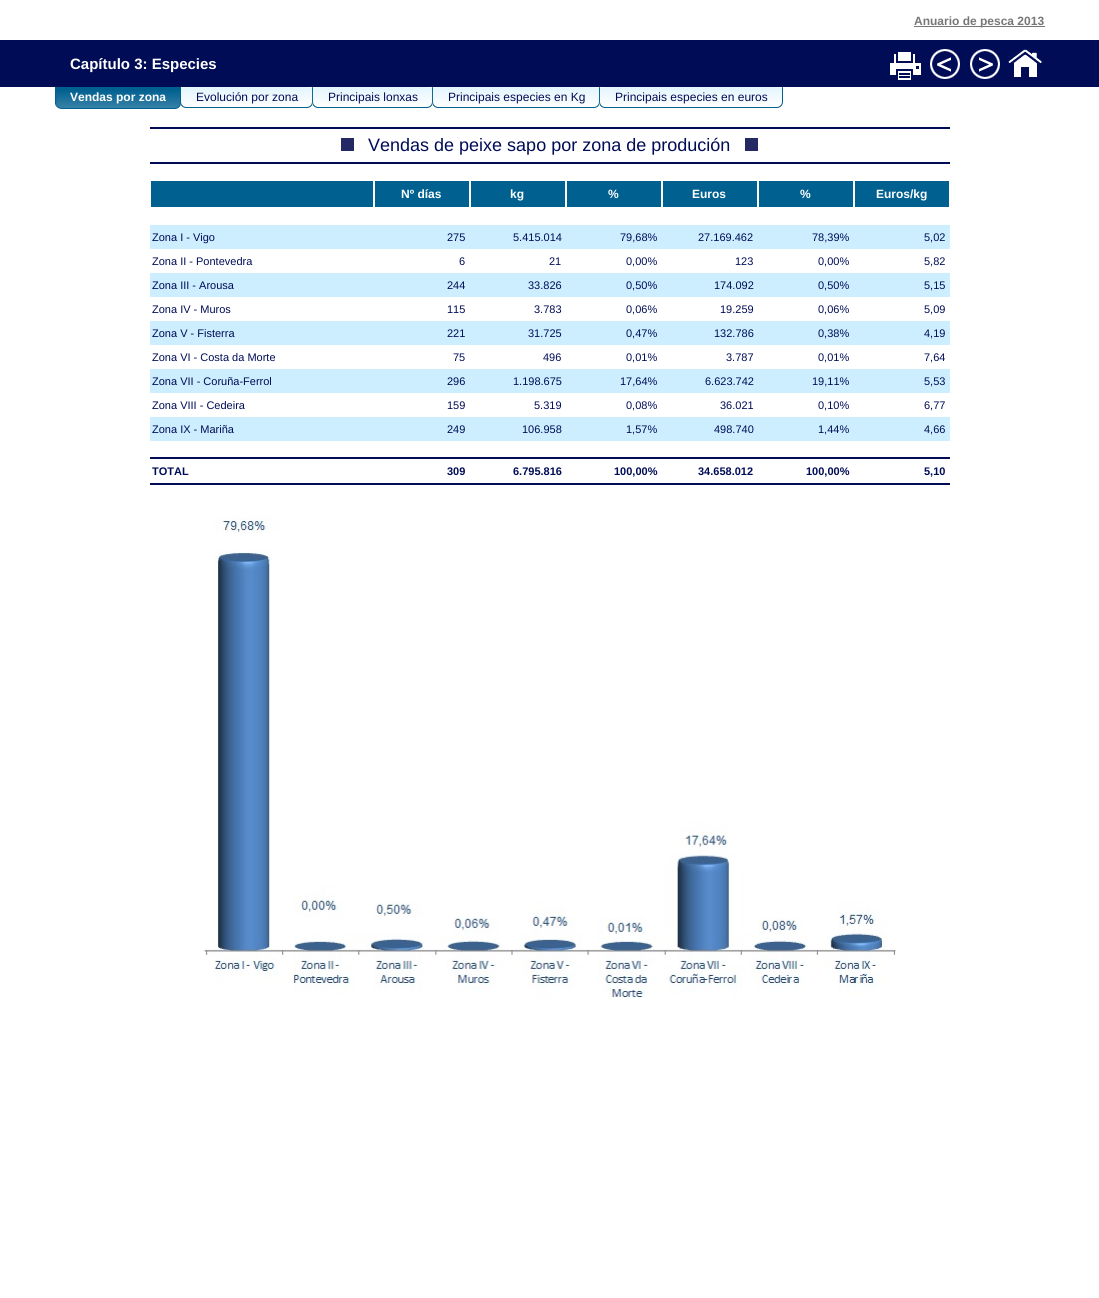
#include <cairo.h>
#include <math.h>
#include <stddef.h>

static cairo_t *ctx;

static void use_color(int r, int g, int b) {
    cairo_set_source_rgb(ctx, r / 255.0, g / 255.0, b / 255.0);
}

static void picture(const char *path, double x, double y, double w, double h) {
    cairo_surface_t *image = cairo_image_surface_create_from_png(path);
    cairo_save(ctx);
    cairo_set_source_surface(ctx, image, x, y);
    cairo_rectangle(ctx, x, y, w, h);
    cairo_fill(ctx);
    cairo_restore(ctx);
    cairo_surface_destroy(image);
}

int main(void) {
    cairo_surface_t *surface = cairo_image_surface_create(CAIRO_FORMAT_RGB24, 1099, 1298);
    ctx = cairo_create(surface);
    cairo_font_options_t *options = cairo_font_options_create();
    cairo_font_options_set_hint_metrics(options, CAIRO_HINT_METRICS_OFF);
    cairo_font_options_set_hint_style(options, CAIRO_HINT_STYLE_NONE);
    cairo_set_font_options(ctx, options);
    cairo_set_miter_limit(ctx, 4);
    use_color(255, 255, 255);
    cairo_paint(ctx);
    use_color(119, 119, 119);
    cairo_rectangle(ctx, 914, 26, 131, 1);
    cairo_fill(ctx);
    cairo_select_font_face(ctx, "Liberation Sans", CAIRO_FONT_SLANT_NORMAL, CAIRO_FONT_WEIGHT_BOLD);
    cairo_set_font_size(ctx, 12);
    cairo_move_to(ctx, 914, 25);
    cairo_show_text(ctx, "Anuario de pesca 2013");
    use_color(0, 12, 86);
    cairo_rectangle(ctx, 0, 40, 1099, 47);
    cairo_fill(ctx);
    cairo_set_font_size(ctx, 15);
    use_color(255, 255, 255);
    cairo_move_to(ctx, 70, 69);
    cairo_show_text(ctx, "Capítulo 3: Especies");
    picture("img1.png", 890, 52, 31, 28);
    picture("img2.png", 930, 49, 30, 30);
    picture("img3.png", 970, 49, 30, 30);
    picture("img4.png", 1008, 49, 35, 28);
    picture("img5.png", 55, 87, 10, 22);
    picture("img6.png", 65, 87, 116, 22);
    cairo_set_font_size(ctx, 12);
    cairo_move_to(ctx, 70, 101);
    cairo_show_text(ctx, "Vendas por zona");
    picture("img7.png", 181, 87, 9, 21);
    picture("img8.png", 190, 87, 123, 21);
    cairo_select_font_face(ctx, "Liberation Sans", CAIRO_FONT_SLANT_NORMAL, CAIRO_FONT_WEIGHT_NORMAL);
    use_color(0, 12, 86);
    cairo_move_to(ctx, 196, 101);
    cairo_show_text(ctx, "Evolución por zona");
    picture("img7.png", 313, 87, 9, 21);
    picture("img9.png", 322, 87, 111, 21);
    cairo_move_to(ctx, 328, 101);
    cairo_show_text(ctx, "Principais lonxas");
    picture("img7.png", 433, 87, 9, 21);
    picture("img10.png", 442, 87, 158, 21);
    cairo_move_to(ctx, 448, 101);
    cairo_show_text(ctx, "Principais especies en Kg");
    picture("img7.png", 600, 87, 9, 21);
    picture("img11.png", 609, 87, 174, 21);
    cairo_move_to(ctx, 615, 101);
    cairo_show_text(ctx, "Principais especies en euros");
    cairo_rectangle(ctx, 150, 127, 800, 2);
    cairo_fill(ctx);
    cairo_rectangle(ctx, 150, 162, 800, 2);
    cairo_fill(ctx);
    use_color(36, 41, 100);
    cairo_rectangle(ctx, 341, 138, 13, 13);
    cairo_fill(ctx);
    cairo_set_font_size(ctx, 18);
    use_color(0, 12, 86);
    cairo_move_to(ctx, 368, 151);
    cairo_show_text(ctx, "Vendas de peixe sapo por zona de produción");
    use_color(36, 41, 100);
    cairo_rectangle(ctx, 745, 138, 13, 13);
    cairo_fill(ctx);
    use_color(0, 96, 144);
    cairo_rectangle(ctx, 151, 181, 222, 26);
    cairo_fill(ctx);
    cairo_rectangle(ctx, 375, 181, 94, 26);
    cairo_fill(ctx);
    cairo_select_font_face(ctx, "Liberation Sans", CAIRO_FONT_SLANT_NORMAL, CAIRO_FONT_WEIGHT_BOLD);
    cairo_set_font_size(ctx, 12);
    use_color(255, 255, 255);
    cairo_move_to(ctx, 401, 198);
    cairo_show_text(ctx, "Nº días");
    use_color(0, 96, 144);
    cairo_rectangle(ctx, 471, 181, 94, 26);
    cairo_fill(ctx);
    use_color(255, 255, 255);
    cairo_move_to(ctx, 510, 198);
    cairo_show_text(ctx, "kg");
    use_color(0, 96, 144);
    cairo_rectangle(ctx, 567, 181, 94, 26);
    cairo_fill(ctx);
    use_color(255, 255, 255);
    cairo_move_to(ctx, 608, 198);
    cairo_show_text(ctx, "%");
    use_color(0, 96, 144);
    cairo_rectangle(ctx, 663, 181, 94, 26);
    cairo_fill(ctx);
    use_color(255, 255, 255);
    cairo_move_to(ctx, 692, 198);
    cairo_show_text(ctx, "Euros");
    use_color(0, 96, 144);
    cairo_rectangle(ctx, 759, 181, 94, 26);
    cairo_fill(ctx);
    use_color(255, 255, 255);
    cairo_move_to(ctx, 800, 198);
    cairo_show_text(ctx, "%");
    use_color(0, 96, 144);
    cairo_rectangle(ctx, 855, 181, 94, 26);
    cairo_fill(ctx);
    use_color(255, 255, 255);
    cairo_move_to(ctx, 876, 198);
    cairo_show_text(ctx, "Euros/kg");
    use_color(204, 238, 255);
    cairo_rectangle(ctx, 150, 225, 800, 24);
    cairo_fill(ctx);
    cairo_select_font_face(ctx, "Liberation Sans", CAIRO_FONT_SLANT_NORMAL, CAIRO_FONT_WEIGHT_NORMAL);
    cairo_set_font_size(ctx, 11);
    use_color(0, 12, 86);
    cairo_move_to(ctx, 152, 241);
    cairo_show_text(ctx, "Zona I - Vigo");
    cairo_move_to(ctx, 447, 241);
    cairo_show_text(ctx, "275");
    cairo_move_to(ctx, 513, 241);
    cairo_show_text(ctx, "5.415.014");
    cairo_move_to(ctx, 620, 241);
    cairo_show_text(ctx, "79,68%");
    cairo_move_to(ctx, 698, 241);
    cairo_show_text(ctx, "27.169.462");
    cairo_move_to(ctx, 812, 241);
    cairo_show_text(ctx, "78,39%");
    cairo_move_to(ctx, 924, 241);
    cairo_show_text(ctx, "5,02");
    cairo_move_to(ctx, 152, 265);
    cairo_show_text(ctx, "Zona II - Pontevedra");
    cairo_move_to(ctx, 459, 265);
    cairo_show_text(ctx, "6");
    cairo_move_to(ctx, 549, 265);
    cairo_show_text(ctx, "21");
    cairo_move_to(ctx, 626, 265);
    cairo_show_text(ctx, "0,00%");
    cairo_move_to(ctx, 735, 265);
    cairo_show_text(ctx, "123");
    cairo_move_to(ctx, 818, 265);
    cairo_show_text(ctx, "0,00%");
    cairo_move_to(ctx, 924, 265);
    cairo_show_text(ctx, "5,82");
    use_color(204, 238, 255);
    cairo_rectangle(ctx, 150, 273, 800, 24);
    cairo_fill(ctx);
    use_color(0, 12, 86);
    cairo_move_to(ctx, 152, 289);
    cairo_show_text(ctx, "Zona III - Arousa");
    cairo_move_to(ctx, 447, 289);
    cairo_show_text(ctx, "244");
    cairo_move_to(ctx, 528, 289);
    cairo_show_text(ctx, "33.826");
    cairo_move_to(ctx, 626, 289);
    cairo_show_text(ctx, "0,50%");
    cairo_move_to(ctx, 714, 289);
    cairo_show_text(ctx, "174.092");
    cairo_move_to(ctx, 818, 289);
    cairo_show_text(ctx, "0,50%");
    cairo_move_to(ctx, 924, 289);
    cairo_show_text(ctx, "5,15");
    cairo_move_to(ctx, 152, 313);
    cairo_show_text(ctx, "Zona IV - Muros");
    cairo_move_to(ctx, 447, 313);
    cairo_show_text(ctx, "115");
    cairo_move_to(ctx, 534, 313);
    cairo_show_text(ctx, "3.783");
    cairo_move_to(ctx, 626, 313);
    cairo_show_text(ctx, "0,06%");
    cairo_move_to(ctx, 720, 313);
    cairo_show_text(ctx, "19.259");
    cairo_move_to(ctx, 818, 313);
    cairo_show_text(ctx, "0,06%");
    cairo_move_to(ctx, 924, 313);
    cairo_show_text(ctx, "5,09");
    use_color(204, 238, 255);
    cairo_rectangle(ctx, 150, 321, 800, 24);
    cairo_fill(ctx);
    use_color(0, 12, 86);
    cairo_move_to(ctx, 152, 337);
    cairo_show_text(ctx, "Zona V - Fisterra");
    cairo_move_to(ctx, 447, 337);
    cairo_show_text(ctx, "221");
    cairo_move_to(ctx, 528, 337);
    cairo_show_text(ctx, "31.725");
    cairo_move_to(ctx, 626, 337);
    cairo_show_text(ctx, "0,47%");
    cairo_move_to(ctx, 714, 337);
    cairo_show_text(ctx, "132.786");
    cairo_move_to(ctx, 818, 337);
    cairo_show_text(ctx, "0,38%");
    cairo_move_to(ctx, 924, 337);
    cairo_show_text(ctx, "4,19");
    cairo_move_to(ctx, 152, 361);
    cairo_show_text(ctx, "Zona VI - Costa da Morte");
    cairo_move_to(ctx, 453, 361);
    cairo_show_text(ctx, "75");
    cairo_move_to(ctx, 543, 361);
    cairo_show_text(ctx, "496");
    cairo_move_to(ctx, 626, 361);
    cairo_show_text(ctx, "0,01%");
    cairo_move_to(ctx, 726, 361);
    cairo_show_text(ctx, "3.787");
    cairo_move_to(ctx, 818, 361);
    cairo_show_text(ctx, "0,01%");
    cairo_move_to(ctx, 924, 361);
    cairo_show_text(ctx, "7,64");
    use_color(204, 238, 255);
    cairo_rectangle(ctx, 150, 369, 800, 24);
    cairo_fill(ctx);
    use_color(0, 12, 86);
    cairo_move_to(ctx, 152, 385);
    cairo_show_text(ctx, "Zona VII - Coruña-Ferrol");
    cairo_move_to(ctx, 447, 385);
    cairo_show_text(ctx, "296");
    cairo_move_to(ctx, 513, 385);
    cairo_show_text(ctx, "1.198.675");
    cairo_move_to(ctx, 620, 385);
    cairo_show_text(ctx, "17,64%");
    cairo_move_to(ctx, 705, 385);
    cairo_show_text(ctx, "6.623.742");
    cairo_move_to(ctx, 812, 385);
    cairo_show_text(ctx, "19,11%");
    cairo_move_to(ctx, 924, 385);
    cairo_show_text(ctx, "5,53");
    cairo_move_to(ctx, 152, 409);
    cairo_show_text(ctx, "Zona VIII - Cedeira");
    cairo_move_to(ctx, 447, 409);
    cairo_show_text(ctx, "159");
    cairo_move_to(ctx, 534, 409);
    cairo_show_text(ctx, "5.319");
    cairo_move_to(ctx, 626, 409);
    cairo_show_text(ctx, "0,08%");
    cairo_move_to(ctx, 720, 409);
    cairo_show_text(ctx, "36.021");
    cairo_move_to(ctx, 818, 409);
    cairo_show_text(ctx, "0,10%");
    cairo_move_to(ctx, 924, 409);
    cairo_show_text(ctx, "6,77");
    use_color(204, 238, 255);
    cairo_rectangle(ctx, 150, 417, 800, 24);
    cairo_fill(ctx);
    use_color(0, 12, 86);
    cairo_move_to(ctx, 152, 433);
    cairo_show_text(ctx, "Zona IX - Mariña");
    cairo_move_to(ctx, 447, 433);
    cairo_show_text(ctx, "249");
    cairo_move_to(ctx, 522, 433);
    cairo_show_text(ctx, "106.958");
    cairo_move_to(ctx, 626, 433);
    cairo_show_text(ctx, "1,57%");
    cairo_move_to(ctx, 714, 433);
    cairo_show_text(ctx, "498.740");
    cairo_move_to(ctx, 818, 433);
    cairo_show_text(ctx, "1,44%");
    cairo_move_to(ctx, 924, 433);
    cairo_show_text(ctx, "4,66");
    cairo_rectangle(ctx, 150, 457, 800, 2);
    cairo_fill(ctx);
    cairo_rectangle(ctx, 150, 483, 800, 2);
    cairo_fill(ctx);
    cairo_select_font_face(ctx, "Liberation Sans", CAIRO_FONT_SLANT_NORMAL, CAIRO_FONT_WEIGHT_BOLD);
    cairo_move_to(ctx, 152, 475);
    cairo_show_text(ctx, "TOTAL");
    cairo_move_to(ctx, 447, 475);
    cairo_show_text(ctx, "309");
    cairo_move_to(ctx, 513, 475);
    cairo_show_text(ctx, "6.795.816");
    cairo_move_to(ctx, 614, 475);
    cairo_show_text(ctx, "100,00%");
    cairo_move_to(ctx, 698, 475);
    cairo_show_text(ctx, "34.658.012");
    cairo_move_to(ctx, 806, 475);
    cairo_show_text(ctx, "100,00%");
    cairo_move_to(ctx, 924, 475);
    cairo_show_text(ctx, "5,10");
    picture("img12.png", 203, 517, 693, 482);
    cairo_surface_write_to_png(surface, "result.png");
    cairo_font_options_destroy(options);
    cairo_destroy(ctx);
    cairo_surface_destroy(surface);
    return 0;
}
